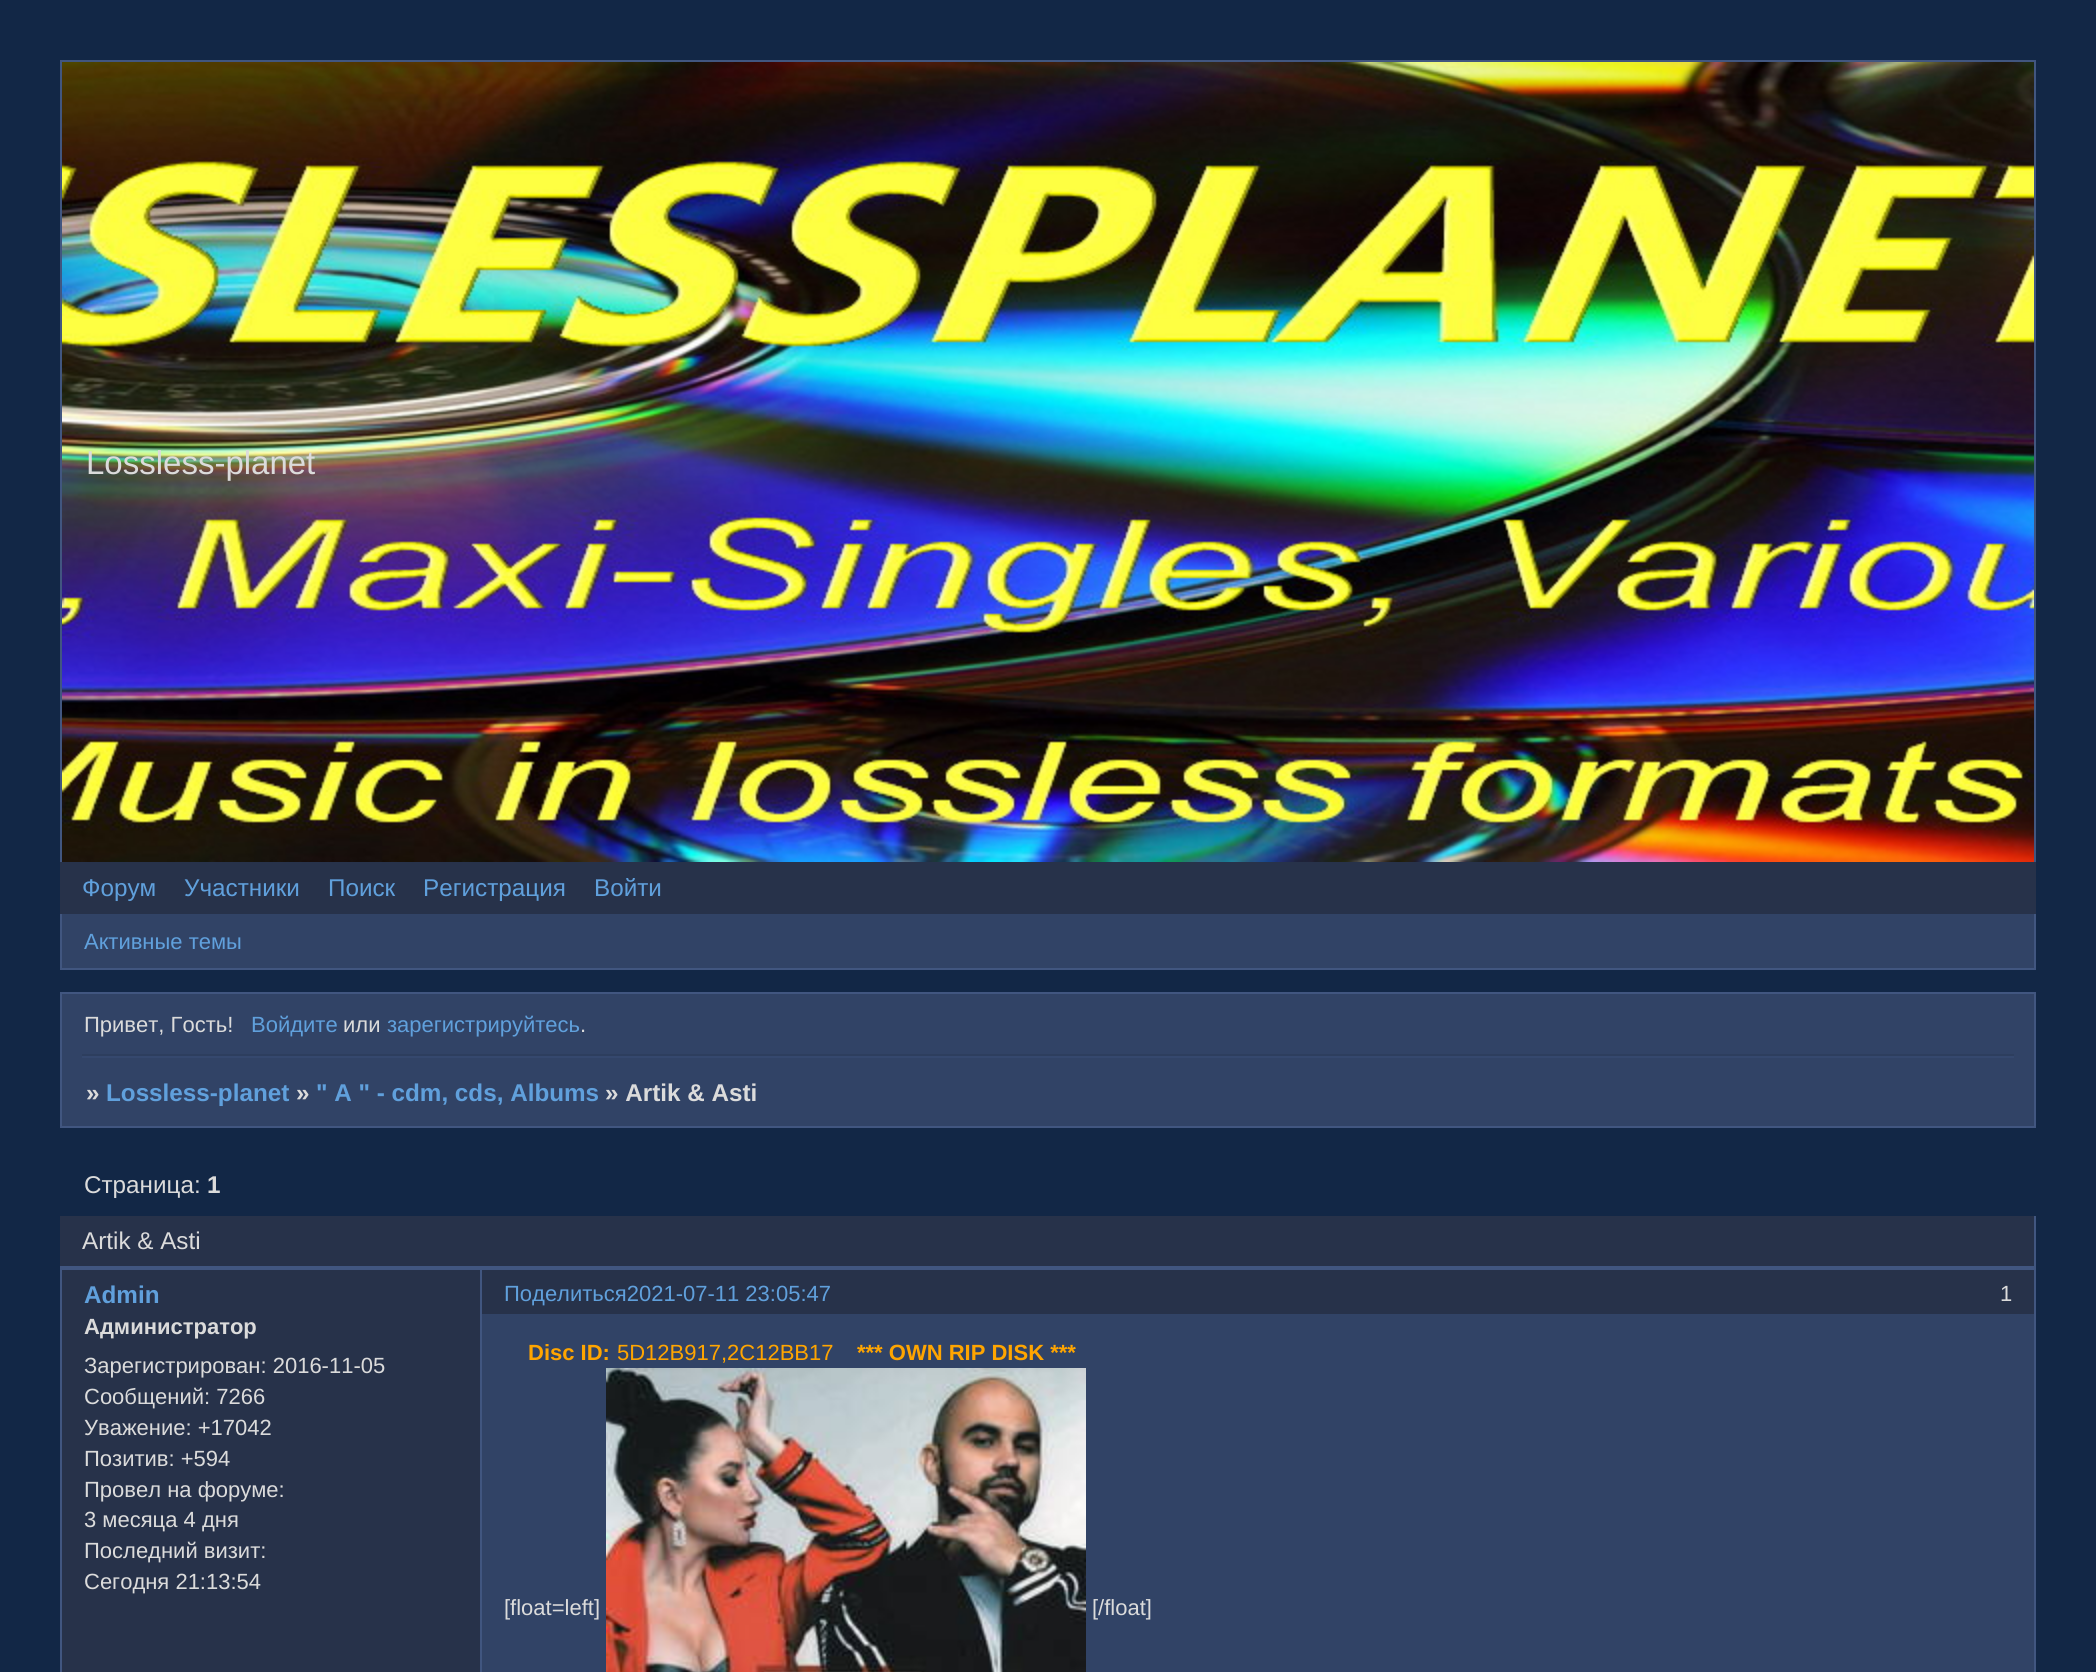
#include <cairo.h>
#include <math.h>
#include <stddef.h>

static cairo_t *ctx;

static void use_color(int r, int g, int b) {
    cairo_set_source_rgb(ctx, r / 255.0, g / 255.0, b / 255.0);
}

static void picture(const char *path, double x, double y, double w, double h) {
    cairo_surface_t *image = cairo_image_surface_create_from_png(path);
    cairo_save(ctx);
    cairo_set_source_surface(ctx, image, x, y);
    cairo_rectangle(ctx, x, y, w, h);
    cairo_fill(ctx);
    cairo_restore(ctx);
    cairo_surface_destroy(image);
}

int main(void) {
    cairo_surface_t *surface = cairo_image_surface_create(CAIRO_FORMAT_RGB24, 2096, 1672);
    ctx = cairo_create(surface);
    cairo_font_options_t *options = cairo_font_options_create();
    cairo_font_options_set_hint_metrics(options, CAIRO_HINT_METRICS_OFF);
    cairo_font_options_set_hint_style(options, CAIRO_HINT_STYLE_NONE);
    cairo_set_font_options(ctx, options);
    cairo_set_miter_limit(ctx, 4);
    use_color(18, 39, 70);
    cairo_paint(ctx);
    use_color(65, 86, 128);
    cairo_rectangle(ctx, 60, 60, 1976, 2);
    cairo_fill(ctx);
    cairo_rectangle(ctx, 2034, 60, 2, 802);
    cairo_fill(ctx);
    cairo_rectangle(ctx, 60, 60, 2, 802);
    cairo_fill(ctx);
    picture("img1.png", 62, 62, 1972, 800);
    cairo_select_font_face(ctx, "Liberation Sans", CAIRO_FONT_SLANT_NORMAL, CAIRO_FONT_WEIGHT_NORMAL);
    cairo_set_font_size(ctx, 33);
    use_color(219, 219, 219);
    cairo_move_to(ctx, 86, 474);
    cairo_show_text(ctx, "Lossless-planet");
    use_color(39, 50, 74);
    cairo_rectangle(ctx, 60, 862, 1976, 52);
    cairo_fill(ctx);
    cairo_set_font_size(ctx, 24.25);
    use_color(96, 160, 220);
    cairo_move_to(ctx, 82, 896);
    cairo_show_text(ctx, "Форум");
    cairo_move_to(ctx, 184, 896);
    cairo_show_text(ctx, "Участники");
    cairo_move_to(ctx, 328, 896);
    cairo_show_text(ctx, "Поиск");
    cairo_move_to(ctx, 423, 896);
    cairo_show_text(ctx, "Регистрация");
    cairo_move_to(ctx, 594, 896);
    cairo_show_text(ctx, "Войти");
    use_color(49, 67, 102);
    cairo_rectangle(ctx, 62, 914, 1972, 54);
    cairo_fill(ctx);
    use_color(65, 86, 128);
    cairo_rectangle(ctx, 2034, 914, 2, 56);
    cairo_fill(ctx);
    cairo_rectangle(ctx, 60, 968, 1976, 2);
    cairo_fill(ctx);
    cairo_rectangle(ctx, 60, 914, 2, 56);
    cairo_fill(ctx);
    cairo_set_font_size(ctx, 22);
    use_color(96, 160, 220);
    cairo_move_to(ctx, 84, 949);
    cairo_show_text(ctx, "Активные темы");
    use_color(49, 67, 102);
    cairo_rectangle(ctx, 62, 994, 1972, 132);
    cairo_fill(ctx);
    use_color(65, 86, 128);
    cairo_rectangle(ctx, 60, 992, 1976, 2);
    cairo_fill(ctx);
    cairo_rectangle(ctx, 2034, 992, 2, 136);
    cairo_fill(ctx);
    cairo_rectangle(ctx, 60, 992, 2, 66);
    cairo_fill(ctx);
    use_color(219, 219, 219);
    cairo_move_to(ctx, 84, 1032);
    cairo_show_text(ctx, "Привет, Гость!");
    use_color(96, 160, 220);
    cairo_move_to(ctx, 251, 1032);
    cairo_show_text(ctx, "Войдите");
    use_color(219, 219, 219);
    cairo_move_to(ctx, 343, 1032);
    cairo_show_text(ctx, "или");
    use_color(96, 160, 220);
    cairo_move_to(ctx, 387, 1032);
    cairo_show_text(ctx, "зарегистрируйтесь");
    use_color(219, 219, 219);
    cairo_move_to(ctx, 580, 1032);
    cairo_show_text(ctx, ".");
    use_color(45, 62, 94);
    cairo_rectangle(ctx, 82, 1054, 1932, 2);
    cairo_fill(ctx);
    use_color(53, 72, 110);
    cairo_rectangle(ctx, 82, 1056, 1932, 2);
    cairo_fill(ctx);
    use_color(65, 86, 128);
    cairo_rectangle(ctx, 60, 1126, 1976, 2);
    cairo_fill(ctx);
    cairo_rectangle(ctx, 60, 1054, 2, 74);
    cairo_fill(ctx);
    cairo_select_font_face(ctx, "Liberation Sans", CAIRO_FONT_SLANT_NORMAL, CAIRO_FONT_WEIGHT_BOLD);
    cairo_set_font_size(ctx, 24.25);
    use_color(219, 219, 219);
    cairo_move_to(ctx, 86, 1101);
    cairo_show_text(ctx, "»");
    use_color(96, 160, 220);
    cairo_move_to(ctx, 106, 1101);
    cairo_show_text(ctx, "Lossless-planet");
    use_color(219, 219, 219);
    cairo_move_to(ctx, 296, 1101);
    cairo_show_text(ctx, "»");
    use_color(96, 160, 220);
    cairo_move_to(ctx, 316, 1101);
    cairo_show_text(ctx, "\" A \" - cdm, cds, Albums");
    use_color(219, 219, 219);
    cairo_move_to(ctx, 605, 1101);
    cairo_show_text(ctx, "» Artik & Asti");
    cairo_select_font_face(ctx, "Liberation Sans", CAIRO_FONT_SLANT_NORMAL, CAIRO_FONT_WEIGHT_NORMAL);
    cairo_move_to(ctx, 84, 1193);
    cairo_show_text(ctx, "Страница:");
    cairo_select_font_face(ctx, "Liberation Sans", CAIRO_FONT_SLANT_NORMAL, CAIRO_FONT_WEIGHT_BOLD);
    cairo_move_to(ctx, 207, 1193);
    cairo_show_text(ctx, "1");
    use_color(39, 50, 74);
    cairo_rectangle(ctx, 60, 1216, 1974, 50);
    cairo_fill(ctx);
    use_color(65, 86, 128);
    cairo_rectangle(ctx, 2034, 1216, 2, 52);
    cairo_fill(ctx);
    cairo_rectangle(ctx, 60, 1266, 1976, 4);
    cairo_fill(ctx);
    cairo_select_font_face(ctx, "Liberation Sans", CAIRO_FONT_SLANT_NORMAL, CAIRO_FONT_WEIGHT_NORMAL);
    use_color(219, 219, 219);
    cairo_move_to(ctx, 82, 1249);
    cairo_show_text(ctx, "Artik & Asti");
    use_color(39, 50, 74);
    cairo_rectangle(ctx, 62, 1314, 418, 358);
    cairo_fill(ctx);
    cairo_rectangle(ctx, 62, 1270, 1972, 44);
    cairo_fill(ctx);
    cairo_select_font_face(ctx, "Liberation Sans", CAIRO_FONT_SLANT_NORMAL, CAIRO_FONT_WEIGHT_BOLD);
    use_color(96, 160, 220);
    cairo_move_to(ctx, 84, 1303);
    cairo_show_text(ctx, "Admin");
    cairo_set_font_size(ctx, 22);
    use_color(219, 219, 219);
    cairo_move_to(ctx, 84, 1334);
    cairo_show_text(ctx, "Администратор");
    cairo_select_font_face(ctx, "Liberation Sans", CAIRO_FONT_SLANT_NORMAL, CAIRO_FONT_WEIGHT_NORMAL);
    cairo_move_to(ctx, 84, 1373);
    cairo_show_text(ctx, "Зарегистрирован: 2016-11-05");
    cairo_move_to(ctx, 84, 1404);
    cairo_show_text(ctx, "Сообщений: 7266");
    cairo_move_to(ctx, 84, 1435);
    cairo_show_text(ctx, "Уважение: +17042");
    cairo_move_to(ctx, 84, 1466);
    cairo_show_text(ctx, "Позитив: +594");
    cairo_move_to(ctx, 84, 1497);
    cairo_show_text(ctx, "Провел на форуме:");
    cairo_move_to(ctx, 84, 1527);
    cairo_show_text(ctx, "3 месяца 4 дня");
    cairo_move_to(ctx, 84, 1558);
    cairo_show_text(ctx, "Последний визит:");
    cairo_move_to(ctx, 84, 1589);
    cairo_show_text(ctx, "Сегодня 21:13:54");
    use_color(49, 67, 102);
    cairo_rectangle(ctx, 482, 1314, 1552, 358);
    cairo_fill(ctx);
    cairo_select_font_face(ctx, "Liberation Sans", CAIRO_FONT_SLANT_NORMAL, CAIRO_FONT_WEIGHT_BOLD);
    use_color(255, 165, 0);
    cairo_move_to(ctx, 528, 1360);
    cairo_show_text(ctx, "Disc ID:");
    cairo_select_font_face(ctx, "Liberation Sans", CAIRO_FONT_SLANT_NORMAL, CAIRO_FONT_WEIGHT_NORMAL);
    cairo_move_to(ctx, 617, 1360);
    cairo_show_text(ctx, "5D12B917,2C12BB17");
    cairo_select_font_face(ctx, "Liberation Sans", CAIRO_FONT_SLANT_NORMAL, CAIRO_FONT_WEIGHT_BOLD);
    cairo_move_to(ctx, 857, 1360);
    cairo_show_text(ctx, "*** OWN RIP DISK ***");
    cairo_select_font_face(ctx, "Liberation Sans", CAIRO_FONT_SLANT_NORMAL, CAIRO_FONT_WEIGHT_NORMAL);
    use_color(219, 219, 219);
    cairo_move_to(ctx, 504, 1615);
    cairo_show_text(ctx, "[float=left]");
    picture("img2.png", 606, 1368, 480, 304);
    cairo_move_to(ctx, 1092, 1615);
    cairo_show_text(ctx, "[/float]");
    use_color(65, 86, 128);
    cairo_rectangle(ctx, 2034, 1268, 2, 404);
    cairo_fill(ctx);
    cairo_rectangle(ctx, 60, 1268, 2, 404);
    cairo_fill(ctx);
    cairo_rectangle(ctx, 480, 1270, 2, 402);
    cairo_fill(ctx);
    use_color(96, 160, 220);
    cairo_move_to(ctx, 504, 1301);
    cairo_show_text(ctx, "Поделиться2021-07-11 23:05:47");
    use_color(219, 219, 219);
    cairo_move_to(ctx, 2000, 1301);
    cairo_show_text(ctx, "1");
    cairo_surface_write_to_png(surface, "result.png");
    cairo_font_options_destroy(options);
    cairo_destroy(ctx);
    cairo_surface_destroy(surface);
    return 0;
}
